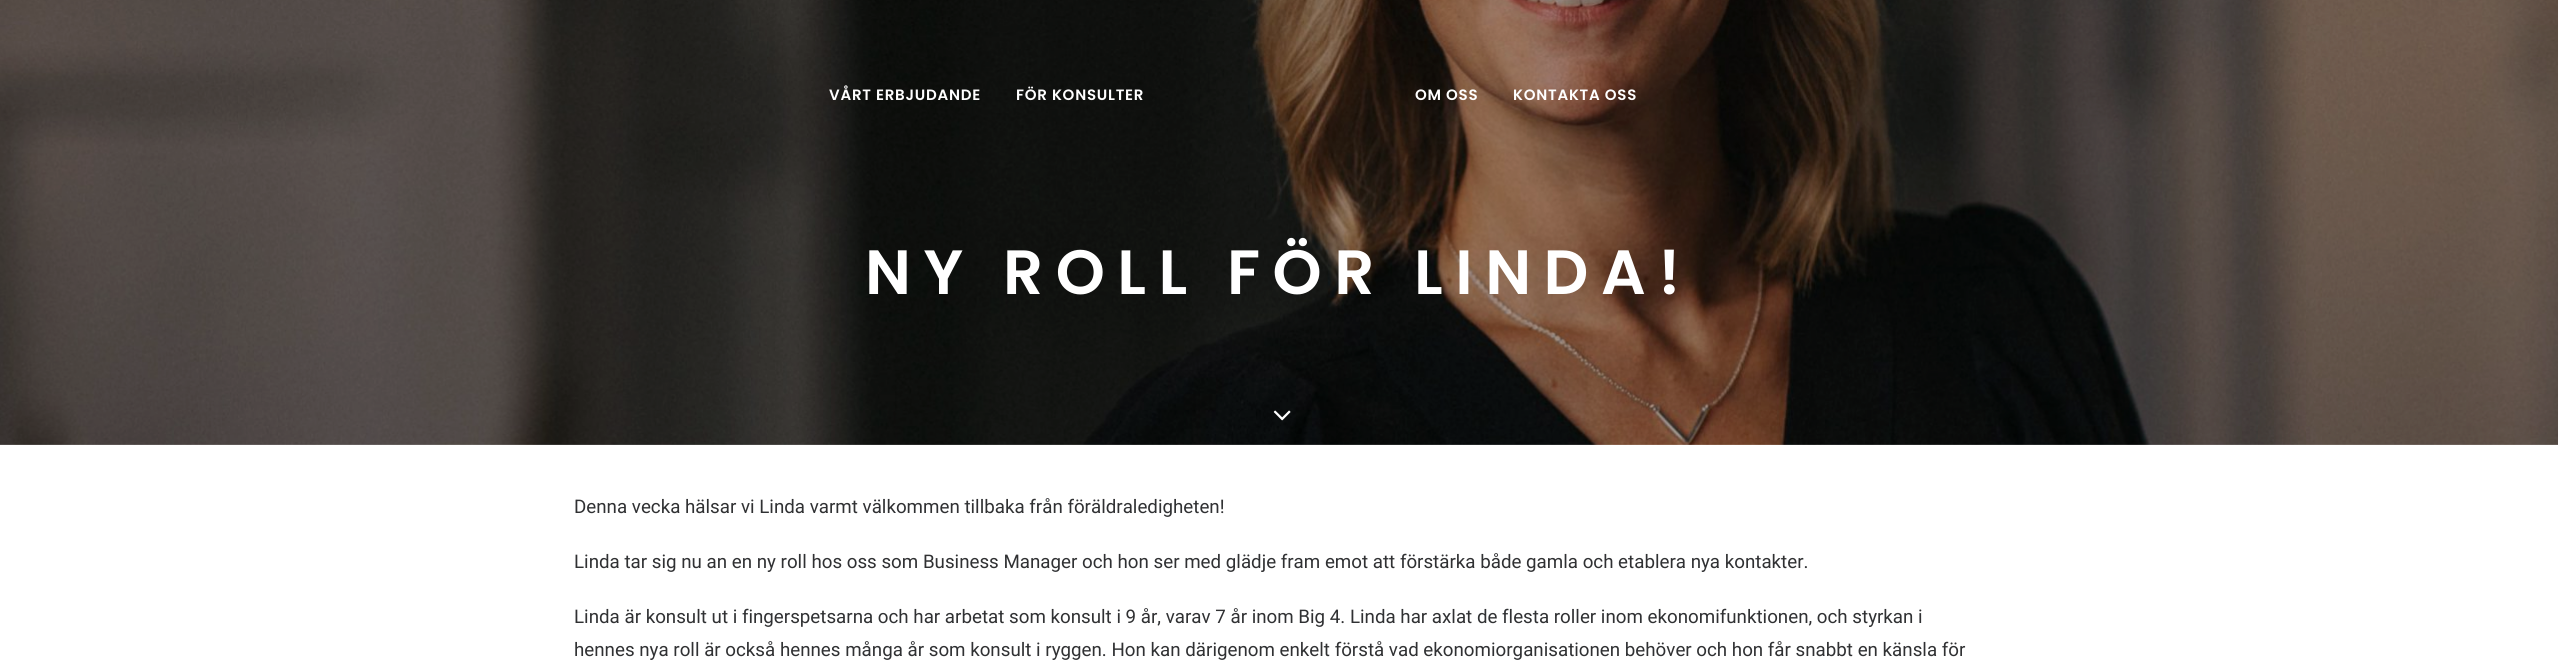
#include <cairo.h>
#include <math.h>
#include <stddef.h>

static cairo_t *ctx;

static void use_color(int r, int g, int b) {
    cairo_set_source_rgb(ctx, r / 255.0, g / 255.0, b / 255.0);
}

static void spaced_text(double x, double y, const char *s, double letter, double word) {
    cairo_move_to(ctx, x, y);
    while (*s) {
        char ch[5] = {0};
        int n = 0;
        do ch[n++] = *s++; while ((*s & 0xC0) == 0x80);
        cairo_show_text(ctx, ch);
        cairo_rel_move_to(ctx, letter + word * (*ch == ' '), 0);
    }
}

static void picture(const char *path, double x, double y, double w, double h) {
    cairo_surface_t *image = cairo_image_surface_create_from_png(path);
    cairo_save(ctx);
    cairo_set_source_surface(ctx, image, x, y);
    cairo_rectangle(ctx, x, y, w, h);
    cairo_fill(ctx);
    cairo_restore(ctx);
    cairo_surface_destroy(image);
}

int main(void) {
    cairo_surface_t *surface = cairo_image_surface_create(CAIRO_FORMAT_RGB24, 2558, 667);
    ctx = cairo_create(surface);
    cairo_font_options_t *options = cairo_font_options_create();
    cairo_font_options_set_hint_metrics(options, CAIRO_HINT_METRICS_OFF);
    cairo_font_options_set_hint_style(options, CAIRO_HINT_STYLE_NONE);
    cairo_set_font_options(ctx, options);
    cairo_set_miter_limit(ctx, 4);
    use_color(255, 255, 255);
    cairo_paint(ctx);
    picture("img1.png", 0, 0, 2558, 445);
    cairo_select_font_face(ctx, "Poppins SemiBold", CAIRO_FONT_SLANT_NORMAL, CAIRO_FONT_WEIGHT_NORMAL);
    cairo_set_font_size(ctx, 15);
    use_color(255, 255, 255);
    spaced_text(829, 100, "VÅRT ERBJUDANDE", 0.75, 0);
    spaced_text(1016, 100, "FÖR KONSULTER", 0.75, 0);
    spaced_text(1415, 100, "OM OSS", 0.75, 0);
    spaced_text(1513, 100, "KONTAKTA OSS", 0.75, 0);
    cairo_set_font_size(ctx, 62.5);
    spaced_text(865, 294, "NY ROLL FÖR LINDA!", 12.5, 0);
    picture("img2.png", 1273, 410, 18, 11);
    cairo_select_font_face(ctx, "Roboto", CAIRO_FONT_SLANT_NORMAL, CAIRO_FONT_WEIGHT_NORMAL);
    cairo_set_font_size(ctx, 18.75);
    use_color(48, 49, 51);
    cairo_move_to(ctx, 574, 513);
    cairo_show_text(ctx, "Denna vecka hälsar vi Linda varmt välkommen tillbaka från föräldraledigheten!");
    cairo_move_to(ctx, 574, 568);
    cairo_show_text(ctx, "Linda tar sig nu an en ny roll hos oss som Business Manager och hon ser med glädje fram emot att förstärka både gamla och etablera nya kontakter.");
    cairo_move_to(ctx, 574, 623);
    cairo_show_text(ctx, "Linda är konsult ut i fingerspetsarna och har arbetat som konsult i 9 år, varav 7 år inom Big 4. Linda har axlat de flesta roller inom ekonomifunktionen, och styrkan i");
    cairo_move_to(ctx, 574, 656);
    cairo_show_text(ctx, "hennes nya roll är också hennes många år som konsult i ryggen. Hon kan därigenom enkelt förstå vad ekonomiorganisationen behöver och hon får snabbt en känsla för");
    cairo_surface_write_to_png(surface, "result.png");
    cairo_font_options_destroy(options);
    cairo_destroy(ctx);
    cairo_surface_destroy(surface);
    return 0;
}
